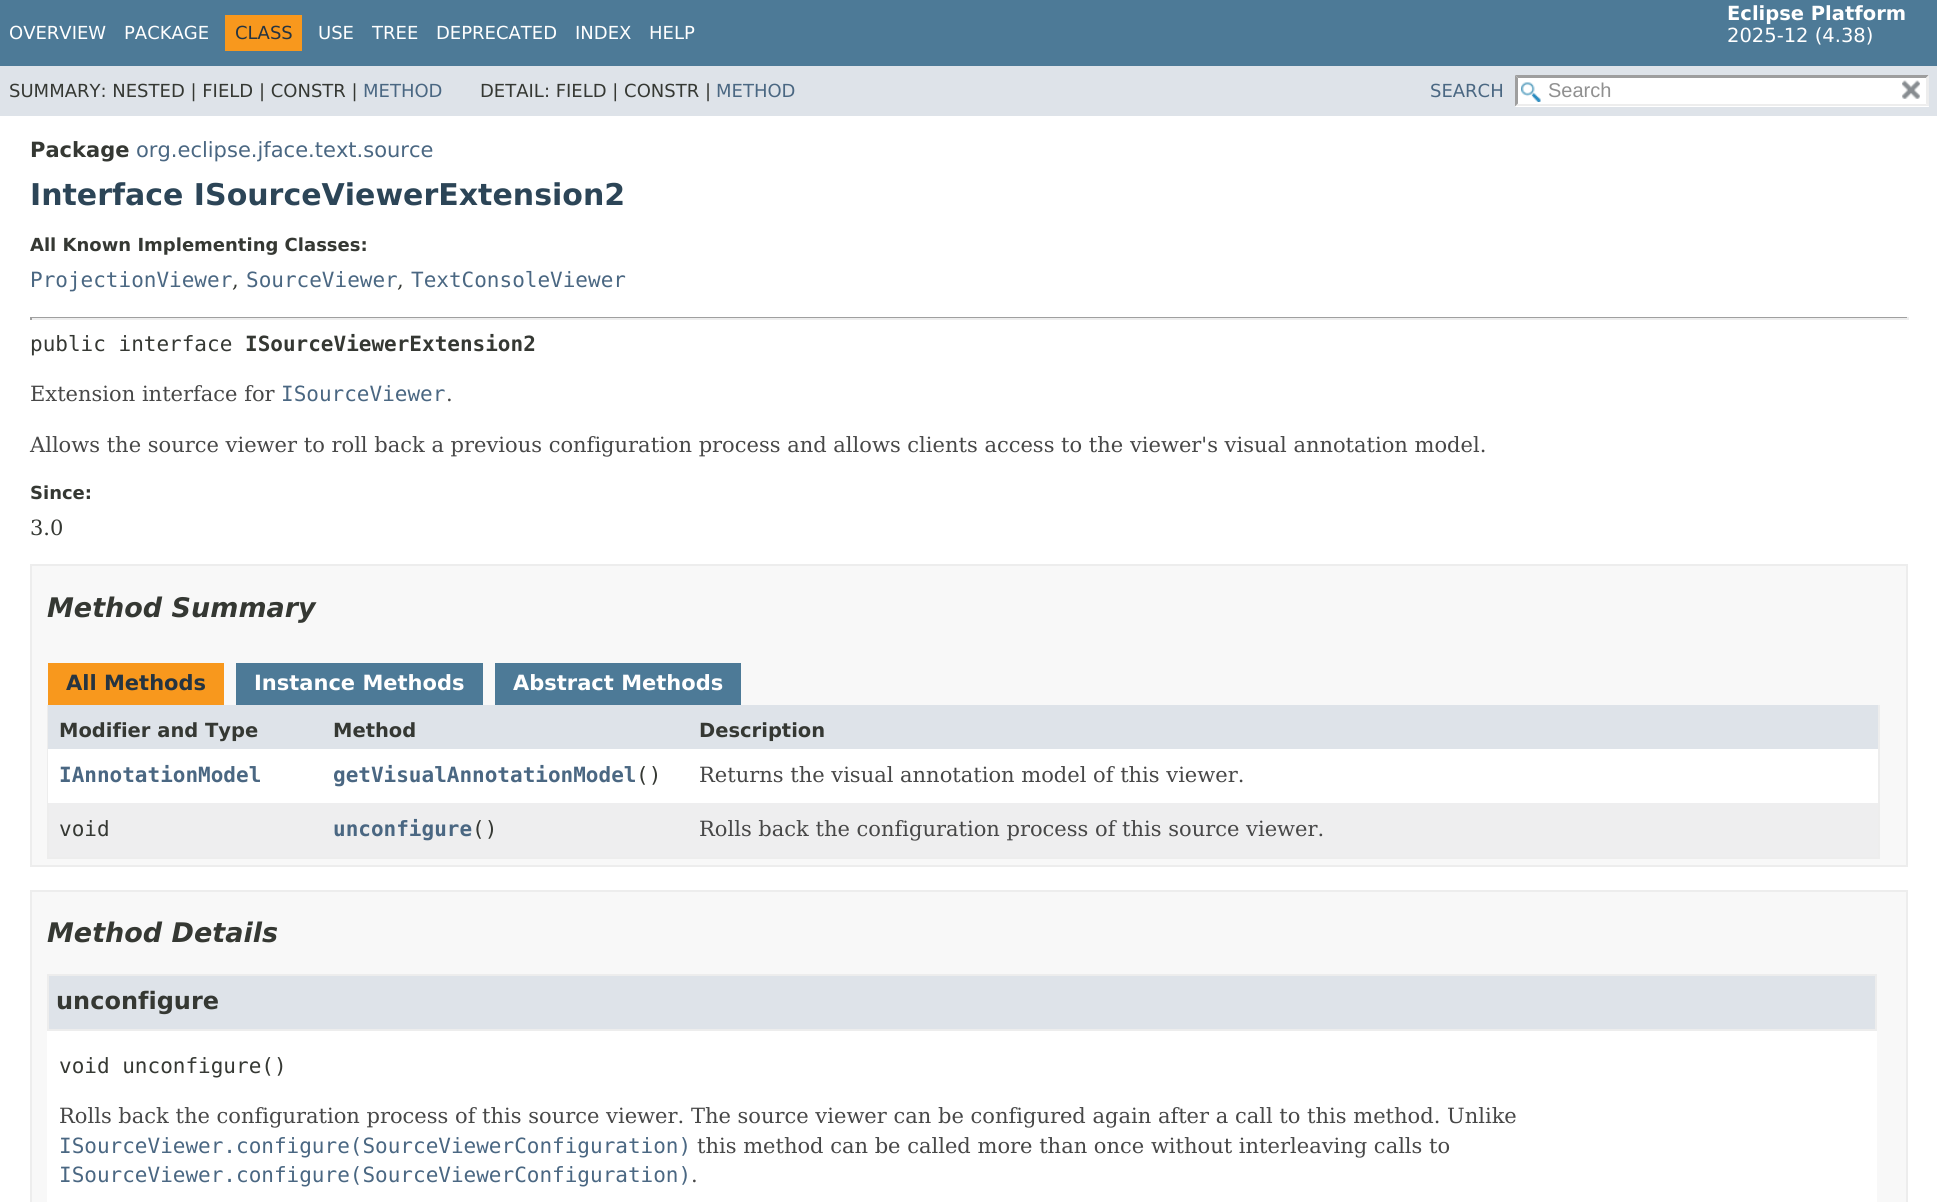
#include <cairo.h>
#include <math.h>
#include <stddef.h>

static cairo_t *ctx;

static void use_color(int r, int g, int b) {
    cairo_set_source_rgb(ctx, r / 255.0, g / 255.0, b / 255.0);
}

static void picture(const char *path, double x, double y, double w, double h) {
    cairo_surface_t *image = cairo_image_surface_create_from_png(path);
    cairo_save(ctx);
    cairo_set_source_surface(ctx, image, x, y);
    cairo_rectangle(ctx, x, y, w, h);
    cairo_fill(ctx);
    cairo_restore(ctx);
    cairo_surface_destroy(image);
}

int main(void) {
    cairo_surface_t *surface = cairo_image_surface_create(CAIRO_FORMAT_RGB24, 1937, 1202);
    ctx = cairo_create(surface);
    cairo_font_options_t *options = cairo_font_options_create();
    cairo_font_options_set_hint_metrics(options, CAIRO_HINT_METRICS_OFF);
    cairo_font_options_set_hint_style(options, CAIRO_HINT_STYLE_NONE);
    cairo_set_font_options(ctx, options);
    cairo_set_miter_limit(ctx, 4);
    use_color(255, 255, 255);
    cairo_paint(ctx);
    use_color(77, 122, 151);
    cairo_rectangle(ctx, 0, 0, 1937, 66);
    cairo_fill(ctx);
    cairo_select_font_face(ctx, "DejaVu Sans", CAIRO_FONT_SLANT_NORMAL, CAIRO_FONT_WEIGHT_NORMAL);
    cairo_set_font_size(ctx, 18);
    use_color(255, 255, 255);
    cairo_move_to(ctx, 9, 39);
    cairo_show_text(ctx, "OVERVIEW");
    cairo_move_to(ctx, 124, 39);
    cairo_show_text(ctx, "PACKAGE");
    use_color(248, 152, 29);
    cairo_rectangle(ctx, 225, 15, 77, 36);
    cairo_fill(ctx);
    use_color(37, 52, 65);
    cairo_move_to(ctx, 235, 39);
    cairo_show_text(ctx, "CLASS");
    use_color(255, 255, 255);
    cairo_move_to(ctx, 318, 39);
    cairo_show_text(ctx, "USE");
    cairo_move_to(ctx, 372, 39);
    cairo_show_text(ctx, "TREE");
    cairo_move_to(ctx, 436, 39);
    cairo_show_text(ctx, "DEPRECATED");
    cairo_move_to(ctx, 575, 39);
    cairo_show_text(ctx, "INDEX");
    cairo_move_to(ctx, 649, 39);
    cairo_show_text(ctx, "HELP");
    cairo_select_font_face(ctx, "DejaVu Sans", CAIRO_FONT_SLANT_NORMAL, CAIRO_FONT_WEIGHT_BOLD);
    cairo_set_font_size(ctx, 19.5);
    cairo_move_to(ctx, 1727, 20);
    cairo_show_text(ctx, "Eclipse Platform");
    cairo_select_font_face(ctx, "DejaVu Sans", CAIRO_FONT_SLANT_NORMAL, CAIRO_FONT_WEIGHT_NORMAL);
    cairo_move_to(ctx, 1727, 42);
    cairo_show_text(ctx, "2025-12 (4.38)");
    use_color(222, 227, 233);
    cairo_rectangle(ctx, 0, 66, 1937, 50);
    cairo_fill(ctx);
    cairo_set_font_size(ctx, 18);
    use_color(53, 56, 51);
    cairo_move_to(ctx, 9, 97);
    cairo_show_text(ctx, "SUMMARY: NESTED | FIELD | CONSTR |");
    use_color(74, 103, 130);
    cairo_move_to(ctx, 363, 97);
    cairo_show_text(ctx, "METHOD");
    use_color(53, 56, 51);
    cairo_move_to(ctx, 480, 97);
    cairo_show_text(ctx, "DETAIL: FIELD | CONSTR |");
    use_color(74, 103, 130);
    cairo_move_to(ctx, 716, 97);
    cairo_show_text(ctx, "METHOD");
    cairo_move_to(ctx, 1430, 97);
    cairo_show_text(ctx, "SEARCH");
    use_color(255, 255, 255);
    cairo_rectangle(ctx, 1515, 75, 414, 32);
    cairo_fill(ctx);
    picture("img1.png", 1521, 82, 20, 20);
    use_color(158, 158, 158);
    cairo_new_path(ctx);
    cairo_move_to(ctx, 1515, 75);
    cairo_line_to(ctx, 1929, 75);
    cairo_line_to(ctx, 1926, 78);
    cairo_line_to(ctx, 1518, 78);
    cairo_close_path(ctx);
    cairo_fill(ctx);
    use_color(237, 237, 237);
    cairo_new_path(ctx);
    cairo_move_to(ctx, 1929, 75);
    cairo_line_to(ctx, 1929, 106.5);
    cairo_line_to(ctx, 1926, 103.5);
    cairo_line_to(ctx, 1926, 78);
    cairo_close_path(ctx);
    cairo_fill(ctx);
    cairo_new_path(ctx);
    cairo_move_to(ctx, 1929, 106);
    cairo_line_to(ctx, 1515, 106);
    cairo_line_to(ctx, 1518, 104);
    cairo_line_to(ctx, 1926, 104);
    cairo_close_path(ctx);
    cairo_fill(ctx);
    use_color(158, 158, 158);
    cairo_new_path(ctx);
    cairo_move_to(ctx, 1515, 106.5);
    cairo_line_to(ctx, 1515, 75);
    cairo_line_to(ctx, 1518, 78);
    cairo_line_to(ctx, 1518, 103.5);
    cairo_close_path(ctx);
    cairo_fill(ctx);
    cairo_select_font_face(ctx, "Liberation Sans", CAIRO_FONT_SLANT_NORMAL, CAIRO_FONT_WEIGHT_NORMAL);
    cairo_set_font_size(ctx, 20);
    use_color(144, 144, 144);
    cairo_move_to(ctx, 1548, 97);
    cairo_show_text(ctx, "Search");
    picture("img2.png", 1902, 80, 18, 19);
    cairo_select_font_face(ctx, "DejaVu Sans", CAIRO_FONT_SLANT_NORMAL, CAIRO_FONT_WEIGHT_BOLD);
    cairo_set_font_size(ctx, 21);
    use_color(53, 56, 51);
    cairo_move_to(ctx, 30, 157);
    cairo_show_text(ctx, "Package");
    cairo_select_font_face(ctx, "DejaVu Sans", CAIRO_FONT_SLANT_NORMAL, CAIRO_FONT_WEIGHT_NORMAL);
    use_color(74, 103, 130);
    cairo_move_to(ctx, 136, 157);
    cairo_show_text(ctx, "org.eclipse.jface.text.source");
    cairo_select_font_face(ctx, "DejaVu Sans", CAIRO_FONT_SLANT_NORMAL, CAIRO_FONT_WEIGHT_BOLD);
    cairo_set_font_size(ctx, 30);
    use_color(44, 69, 87);
    cairo_move_to(ctx, 30, 205);
    cairo_show_text(ctx, "Interface ISourceViewerExtension2");
    cairo_set_font_size(ctx, 18);
    use_color(53, 56, 51);
    cairo_move_to(ctx, 30, 251);
    cairo_show_text(ctx, "All Known Implementing Classes:");
    cairo_select_font_face(ctx, "DejaVu Sans Mono", CAIRO_FONT_SLANT_NORMAL, CAIRO_FONT_WEIGHT_NORMAL);
    cairo_set_font_size(ctx, 21);
    use_color(74, 103, 130);
    cairo_move_to(ctx, 30, 287);
    cairo_show_text(ctx, "ProjectionViewer");
    cairo_select_font_face(ctx, "DejaVu Serif", CAIRO_FONT_SLANT_NORMAL, CAIRO_FONT_WEIGHT_NORMAL);
    use_color(53, 56, 51);
    cairo_move_to(ctx, 232, 287);
    cairo_show_text(ctx, ",");
    cairo_select_font_face(ctx, "DejaVu Sans Mono", CAIRO_FONT_SLANT_NORMAL, CAIRO_FONT_WEIGHT_NORMAL);
    use_color(74, 103, 130);
    cairo_move_to(ctx, 246, 287);
    cairo_show_text(ctx, "SourceViewer");
    cairo_select_font_face(ctx, "DejaVu Serif", CAIRO_FONT_SLANT_NORMAL, CAIRO_FONT_WEIGHT_NORMAL);
    use_color(53, 56, 51);
    cairo_move_to(ctx, 397, 287);
    cairo_show_text(ctx, ",");
    cairo_select_font_face(ctx, "DejaVu Sans Mono", CAIRO_FONT_SLANT_NORMAL, CAIRO_FONT_WEIGHT_NORMAL);
    use_color(74, 103, 130);
    cairo_move_to(ctx, 411, 287);
    cairo_show_text(ctx, "TextConsoleViewer");
    use_color(159, 159, 159);
    cairo_rectangle(ctx, 30, 317, 1878, 1);
    cairo_fill(ctx);
    use_color(238, 238, 238);
    cairo_rectangle(ctx, 1907, 317, 2, 3);
    cairo_fill(ctx);
    cairo_rectangle(ctx, 30, 318, 1878, 2);
    cairo_fill(ctx);
    use_color(159, 159, 159);
    cairo_rectangle(ctx, 30, 317, 2, 3);
    cairo_fill(ctx);
    use_color(53, 56, 51);
    cairo_move_to(ctx, 30, 351);
    cairo_show_text(ctx, "public interface");
    cairo_select_font_face(ctx, "DejaVu Sans Mono", CAIRO_FONT_SLANT_NORMAL, CAIRO_FONT_WEIGHT_BOLD);
    cairo_move_to(ctx, 245, 351);
    cairo_show_text(ctx, "ISourceViewerExtension2");
    cairo_select_font_face(ctx, "DejaVu Serif", CAIRO_FONT_SLANT_NORMAL, CAIRO_FONT_WEIGHT_NORMAL);
    use_color(71, 71, 71);
    cairo_move_to(ctx, 30, 401);
    cairo_show_text(ctx, "Extension interface for");
    cairo_select_font_face(ctx, "DejaVu Sans Mono", CAIRO_FONT_SLANT_NORMAL, CAIRO_FONT_WEIGHT_NORMAL);
    use_color(74, 103, 130);
    cairo_move_to(ctx, 281, 401);
    cairo_show_text(ctx, "ISourceViewer");
    cairo_select_font_face(ctx, "DejaVu Serif", CAIRO_FONT_SLANT_NORMAL, CAIRO_FONT_WEIGHT_NORMAL);
    use_color(71, 71, 71);
    cairo_move_to(ctx, 446, 401);
    cairo_show_text(ctx, ".");
    cairo_move_to(ctx, 30, 452);
    cairo_show_text(ctx, "Allows the source viewer to roll back a previous configuration process and allows clients access to the viewer's visual annotation model.");
    cairo_select_font_face(ctx, "DejaVu Sans", CAIRO_FONT_SLANT_NORMAL, CAIRO_FONT_WEIGHT_BOLD);
    cairo_set_font_size(ctx, 18);
    use_color(53, 56, 51);
    cairo_move_to(ctx, 30, 499);
    cairo_show_text(ctx, "Since:");
    cairo_select_font_face(ctx, "DejaVu Serif", CAIRO_FONT_SLANT_NORMAL, CAIRO_FONT_WEIGHT_NORMAL);
    cairo_set_font_size(ctx, 21);
    cairo_move_to(ctx, 30, 535);
    cairo_show_text(ctx, "3.0");
    use_color(248, 248, 248);
    cairo_rectangle(ctx, 31, 565, 1876, 301);
    cairo_fill_preserve(ctx);
    use_color(237, 237, 237);
    cairo_stroke(ctx);
    cairo_select_font_face(ctx, "DejaVu Sans", CAIRO_FONT_SLANT_ITALIC, CAIRO_FONT_WEIGHT_BOLD);
    cairo_set_font_size(ctx, 27);
    use_color(53, 56, 51);
    cairo_move_to(ctx, 47, 617);
    cairo_show_text(ctx, "Method Summary");
    use_color(248, 152, 29);
    cairo_rectangle(ctx, 48, 663, 176, 42);
    cairo_fill(ctx);
    cairo_select_font_face(ctx, "DejaVu Sans", CAIRO_FONT_SLANT_NORMAL, CAIRO_FONT_WEIGHT_BOLD);
    cairo_set_font_size(ctx, 21);
    use_color(37, 52, 65);
    cairo_move_to(ctx, 66, 690);
    cairo_show_text(ctx, "All Methods");
    use_color(77, 122, 151);
    cairo_rectangle(ctx, 236, 663, 247, 42);
    cairo_fill(ctx);
    use_color(255, 255, 255);
    cairo_move_to(ctx, 254, 690);
    cairo_show_text(ctx, "Instance Methods");
    use_color(77, 122, 151);
    cairo_rectangle(ctx, 495, 663, 246, 42);
    cairo_fill(ctx);
    use_color(255, 255, 255);
    cairo_move_to(ctx, 513, 690);
    cairo_show_text(ctx, "Abstract Methods");
    use_color(237, 237, 237);
    cairo_rectangle(ctx, 1878, 705, 2, 153);
    cairo_fill(ctx);
    cairo_rectangle(ctx, 47, 857, 1833, 2);
    cairo_fill(ctx);
    cairo_rectangle(ctx, 47, 705, 2, 153);
    cairo_fill(ctx);
    use_color(222, 227, 233);
    cairo_rectangle(ctx, 48, 705, 1830, 44);
    cairo_fill(ctx);
    cairo_set_font_size(ctx, 19.5);
    use_color(53, 56, 51);
    cairo_move_to(ctx, 59, 737);
    cairo_show_text(ctx, "Modifier and Type");
    cairo_move_to(ctx, 333, 737);
    cairo_show_text(ctx, "Method");
    cairo_move_to(ctx, 699, 737);
    cairo_show_text(ctx, "Description");
    use_color(255, 255, 255);
    cairo_rectangle(ctx, 48, 749, 1830, 54);
    cairo_fill(ctx);
    cairo_select_font_face(ctx, "DejaVu Sans Mono", CAIRO_FONT_SLANT_NORMAL, CAIRO_FONT_WEIGHT_BOLD);
    cairo_set_font_size(ctx, 21);
    use_color(74, 103, 130);
    cairo_move_to(ctx, 59, 782);
    cairo_show_text(ctx, "IAnnotationModel");
    cairo_move_to(ctx, 333, 782);
    cairo_show_text(ctx, "getVisualAnnotationModel");
    cairo_select_font_face(ctx, "DejaVu Sans Mono", CAIRO_FONT_SLANT_NORMAL, CAIRO_FONT_WEIGHT_NORMAL);
    use_color(53, 56, 51);
    cairo_move_to(ctx, 636, 782);
    cairo_show_text(ctx, "()");
    cairo_select_font_face(ctx, "DejaVu Serif", CAIRO_FONT_SLANT_NORMAL, CAIRO_FONT_WEIGHT_NORMAL);
    use_color(71, 71, 71);
    cairo_move_to(ctx, 699, 782);
    cairo_show_text(ctx, "Returns the visual annotation model of this viewer.");
    use_color(238, 238, 239);
    cairo_rectangle(ctx, 49, 803, 1829, 54);
    cairo_fill(ctx);
    cairo_select_font_face(ctx, "DejaVu Sans Mono", CAIRO_FONT_SLANT_NORMAL, CAIRO_FONT_WEIGHT_NORMAL);
    use_color(53, 56, 51);
    cairo_move_to(ctx, 59, 836);
    cairo_show_text(ctx, "void");
    cairo_select_font_face(ctx, "DejaVu Sans Mono", CAIRO_FONT_SLANT_NORMAL, CAIRO_FONT_WEIGHT_BOLD);
    use_color(74, 103, 130);
    cairo_move_to(ctx, 333, 836);
    cairo_show_text(ctx, "unconfigure");
    cairo_select_font_face(ctx, "DejaVu Sans Mono", CAIRO_FONT_SLANT_NORMAL, CAIRO_FONT_WEIGHT_NORMAL);
    use_color(53, 56, 51);
    cairo_move_to(ctx, 472, 836);
    cairo_show_text(ctx, "()");
    cairo_select_font_face(ctx, "DejaVu Serif", CAIRO_FONT_SLANT_NORMAL, CAIRO_FONT_WEIGHT_NORMAL);
    use_color(71, 71, 71);
    cairo_move_to(ctx, 699, 836);
    cairo_show_text(ctx, "Rolls back the configuration process of this source viewer.");
    use_color(248, 248, 248);
    cairo_rectangle(ctx, 31, 891, 1876, 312);
    cairo_fill_preserve(ctx);
    use_color(237, 237, 237);
    cairo_stroke(ctx);
    cairo_select_font_face(ctx, "DejaVu Sans", CAIRO_FONT_SLANT_ITALIC, CAIRO_FONT_WEIGHT_BOLD);
    cairo_set_font_size(ctx, 27);
    use_color(53, 56, 51);
    cairo_move_to(ctx, 47, 942);
    cairo_show_text(ctx, "Method Details");
    use_color(255, 255, 255);
    cairo_rectangle(ctx, 47, 1031, 1830, 171);
    cairo_fill(ctx);
    use_color(222, 227, 233);
    cairo_rectangle(ctx, 48, 975, 1828, 55);
    cairo_fill_preserve(ctx);
    use_color(237, 237, 237);
    cairo_stroke(ctx);
    cairo_select_font_face(ctx, "DejaVu Sans", CAIRO_FONT_SLANT_NORMAL, CAIRO_FONT_WEIGHT_BOLD);
    cairo_set_font_size(ctx, 24);
    use_color(53, 56, 51);
    cairo_move_to(ctx, 56, 1009);
    cairo_show_text(ctx, "unconfigure");
    cairo_select_font_face(ctx, "DejaVu Sans Mono", CAIRO_FONT_SLANT_NORMAL, CAIRO_FONT_WEIGHT_NORMAL);
    cairo_set_font_size(ctx, 21);
    cairo_move_to(ctx, 59, 1073);
    cairo_show_text(ctx, "void unconfigure()");
    cairo_select_font_face(ctx, "DejaVu Serif", CAIRO_FONT_SLANT_NORMAL, CAIRO_FONT_WEIGHT_NORMAL);
    use_color(71, 71, 71);
    cairo_move_to(ctx, 59, 1123);
    cairo_show_text(ctx, "Rolls back the configuration process of this source viewer. The source viewer can be configured again after a call to this method. Unlike");
    cairo_select_font_face(ctx, "DejaVu Sans Mono", CAIRO_FONT_SLANT_NORMAL, CAIRO_FONT_WEIGHT_NORMAL);
    use_color(74, 103, 130);
    cairo_move_to(ctx, 59, 1153);
    cairo_show_text(ctx, "ISourceViewer.configure(SourceViewerConfiguration)");
    cairo_select_font_face(ctx, "DejaVu Serif", CAIRO_FONT_SLANT_NORMAL, CAIRO_FONT_WEIGHT_NORMAL);
    use_color(71, 71, 71);
    cairo_move_to(ctx, 697, 1153);
    cairo_show_text(ctx, "this method can be called more than once without interleaving calls to");
    cairo_select_font_face(ctx, "DejaVu Sans Mono", CAIRO_FONT_SLANT_NORMAL, CAIRO_FONT_WEIGHT_NORMAL);
    use_color(74, 103, 130);
    cairo_move_to(ctx, 59, 1182);
    cairo_show_text(ctx, "ISourceViewer.configure(SourceViewerConfiguration)");
    cairo_select_font_face(ctx, "DejaVu Serif", CAIRO_FONT_SLANT_NORMAL, CAIRO_FONT_WEIGHT_NORMAL);
    use_color(71, 71, 71);
    cairo_move_to(ctx, 691, 1182);
    cairo_show_text(ctx, ".");
    cairo_surface_write_to_png(surface, "result.png");
    cairo_font_options_destroy(options);
    cairo_destroy(ctx);
    cairo_surface_destroy(surface);
    return 0;
}
